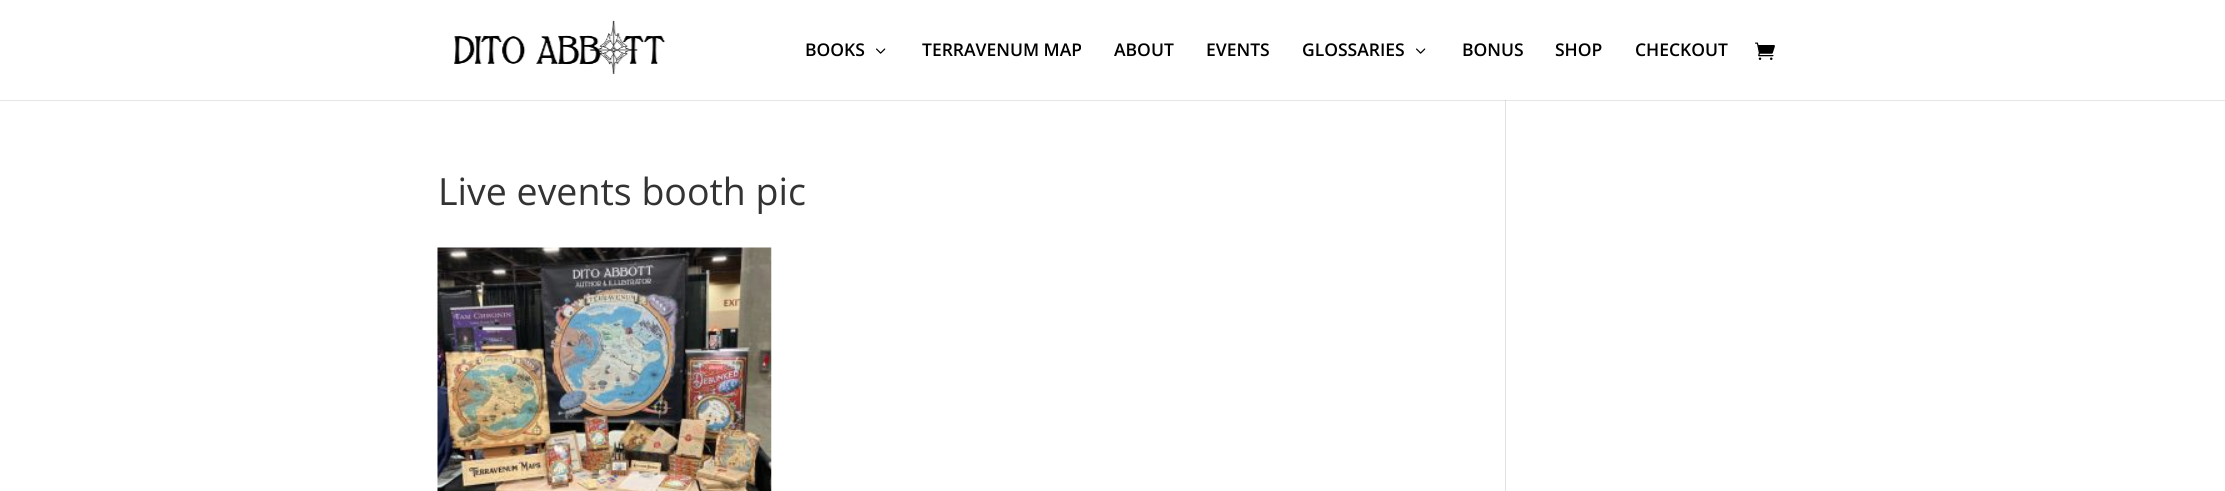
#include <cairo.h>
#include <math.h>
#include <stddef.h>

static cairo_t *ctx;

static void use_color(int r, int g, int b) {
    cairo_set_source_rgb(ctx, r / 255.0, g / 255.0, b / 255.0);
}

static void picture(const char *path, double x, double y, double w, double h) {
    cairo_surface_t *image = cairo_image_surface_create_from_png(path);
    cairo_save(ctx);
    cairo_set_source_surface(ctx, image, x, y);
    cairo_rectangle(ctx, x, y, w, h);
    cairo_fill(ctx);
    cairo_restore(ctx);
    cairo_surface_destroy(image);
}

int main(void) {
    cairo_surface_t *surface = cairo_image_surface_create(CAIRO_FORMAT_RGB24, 2225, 491);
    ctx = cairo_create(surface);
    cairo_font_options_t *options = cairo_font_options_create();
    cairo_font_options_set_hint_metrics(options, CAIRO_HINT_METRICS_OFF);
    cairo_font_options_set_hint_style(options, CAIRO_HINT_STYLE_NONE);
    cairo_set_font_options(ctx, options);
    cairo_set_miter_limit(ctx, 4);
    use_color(255, 255, 255);
    cairo_paint(ctx);
    use_color(230, 230, 230);
    cairo_rectangle(ctx, 0, 100, 2225, 1);
    cairo_fill(ctx);
    picture("img1.png", 454, 20, 212, 54);
    cairo_select_font_face(ctx, "Open Sans SemiBold", CAIRO_FONT_SLANT_NORMAL, CAIRO_FONT_WEIGHT_NORMAL);
    cairo_set_font_size(ctx, 17.5);
    use_color(0, 0, 0);
    cairo_move_to(ctx, 805, 56);
    cairo_show_text(ctx, "BOOKS");
    picture("img2.png", 876, 48, 10, 6);
    cairo_move_to(ctx, 922, 56);
    cairo_show_text(ctx, "TERRAVENUM MAP");
    cairo_move_to(ctx, 1114, 56);
    cairo_show_text(ctx, "ABOUT");
    cairo_move_to(ctx, 1206, 56);
    cairo_show_text(ctx, "EVENTS");
    cairo_move_to(ctx, 1302, 56);
    cairo_show_text(ctx, "GLOSSARIES");
    picture("img2.png", 1416, 48, 10, 6);
    cairo_move_to(ctx, 1462, 56);
    cairo_show_text(ctx, "BONUS");
    cairo_move_to(ctx, 1555, 56);
    cairo_show_text(ctx, "SHOP");
    cairo_move_to(ctx, 1635, 56);
    cairo_show_text(ctx, "CHECKOUT");
    picture("img3.png", 1755, 42, 20, 18);
    cairo_select_font_face(ctx, "Open Sans", CAIRO_FONT_SLANT_NORMAL, CAIRO_FONT_WEIGHT_NORMAL);
    cairo_set_font_size(ctx, 37.5);
    use_color(51, 51, 51);
    cairo_move_to(ctx, 438, 205);
    cairo_show_text(ctx, "Live events booth pic");
    picture("img4.png", 437, 247, 335, 244);
    use_color(226, 226, 226);
    cairo_rectangle(ctx, 1505, 100, 1, 391);
    cairo_fill(ctx);
    use_color(203, 203, 203);
    cairo_rectangle(ctx, 1505, 100, 1, 1);
    cairo_fill(ctx);
    cairo_surface_write_to_png(surface, "result.png");
    cairo_font_options_destroy(options);
    cairo_destroy(ctx);
    cairo_surface_destroy(surface);
    return 0;
}
